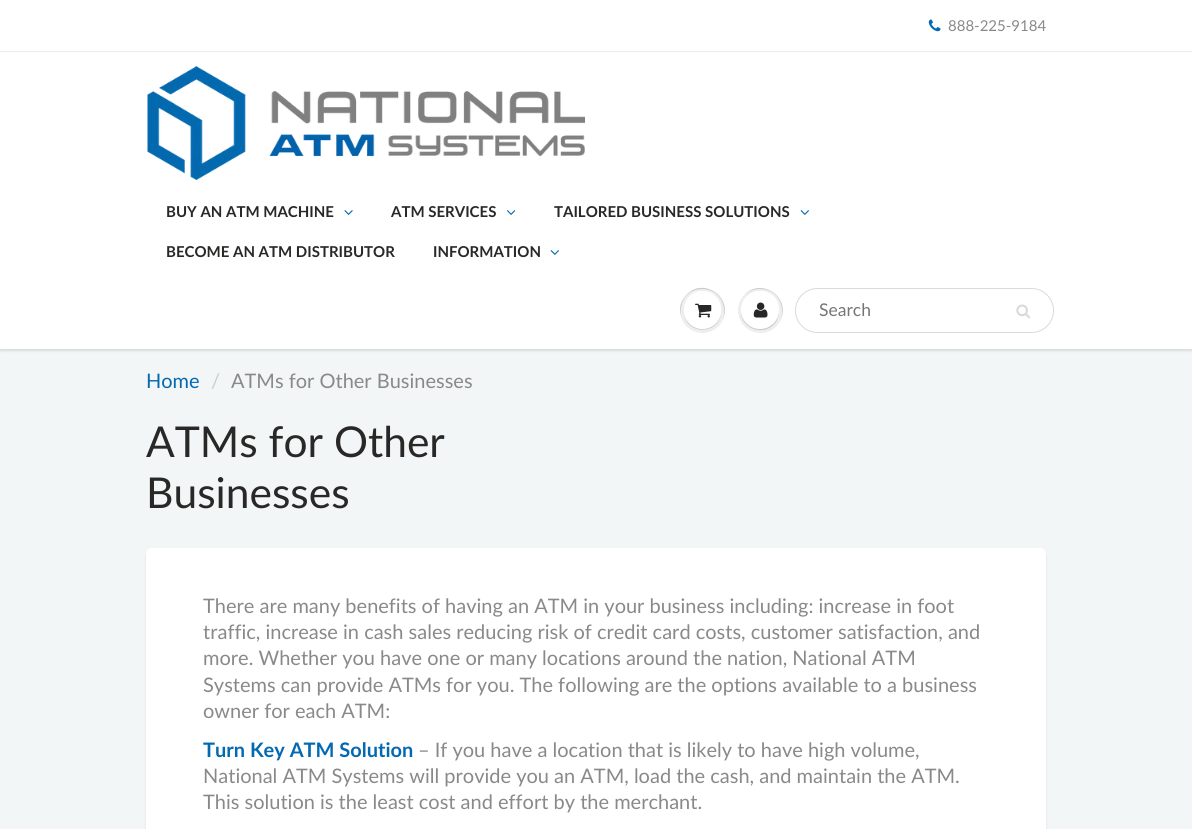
#include <cairo.h>
#include <math.h>
#include <stddef.h>

static cairo_t *ctx;

static void use_color(int r, int g, int b) {
    cairo_set_source_rgb(ctx, r / 255.0, g / 255.0, b / 255.0);
}

static void round_rect(double x, double y, double w, double h, double r) {
    cairo_new_sub_path(ctx);
    cairo_arc(ctx, x + w - r, y + h - r, r, 0, M_PI / 2);
    cairo_arc(ctx, x + r, y + h - r, r, M_PI / 2, M_PI);
    cairo_arc(ctx, x + r, y + r, r, M_PI, 1.5 * M_PI);
    cairo_arc(ctx, x + w - r, y + r, r, 1.5 * M_PI, 2 * M_PI);
    cairo_close_path(ctx);
}

static void shadow(double x, double y, double w, double h, double r, double blur, double alpha) {
    cairo_push_group_with_content(ctx, CAIRO_CONTENT_ALPHA);
    cairo_set_operator(ctx, CAIRO_OPERATOR_SOURCE);
    for (int i = 15; i >= -15 && fmin(w, h) + blur * i / 3 > 0; i -= 2) {
        double e = blur * i / 6;
        cairo_set_source_rgba(ctx, 0, 0, 0, alpha * erfc((i - 1) / 8.5) / 2);
        round_rect(x - e, y - e, w + 2 * e, h + 2 * e, fmax(0, fmin(r + e + blur * .6, fmin(w, h) / 2 + e)));
        cairo_fill(ctx);
    }
    cairo_pattern_t *soft = cairo_pop_group(ctx);
    cairo_mask(ctx, soft);
    cairo_pattern_destroy(soft);
}

static void picture(const char *path, double x, double y, double w, double h) {
    cairo_surface_t *image = cairo_image_surface_create_from_png(path);
    cairo_save(ctx);
    cairo_set_source_surface(ctx, image, x, y);
    cairo_rectangle(ctx, x, y, w, h);
    cairo_fill(ctx);
    cairo_restore(ctx);
    cairo_surface_destroy(image);
}

int main(void) {
    cairo_surface_t *surface = cairo_image_surface_create(CAIRO_FORMAT_RGB24, 1192, 829);
    ctx = cairo_create(surface);
    cairo_font_options_t *options = cairo_font_options_create();
    cairo_font_options_set_hint_metrics(options, CAIRO_HINT_METRICS_OFF);
    cairo_font_options_set_hint_style(options, CAIRO_HINT_STYLE_NONE);
    cairo_set_font_options(ctx, options);
    cairo_set_miter_limit(ctx, 4);
    use_color(255, 255, 255);
    cairo_paint(ctx);
    picture("img1.png", 928, 19, 13, 13);
    cairo_select_font_face(ctx, "Lato", CAIRO_FONT_SLANT_NORMAL, CAIRO_FONT_WEIGHT_NORMAL);
    cairo_set_font_size(ctx, 15);
    use_color(137, 137, 137);
    cairo_move_to(ctx, 948, 31);
    cairo_show_text(ctx, "888-225-9184");
    use_color(243, 246, 246);
    cairo_rectangle(ctx, 0, 349, 1192, 480);
    cairo_fill(ctx);
    use_color(11, 25, 28);
    shadow(0, 54, 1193, 297, 0, 1, 0.12);
    use_color(255, 255, 255);
    cairo_rectangle(ctx, 0, 53, 1192, 296);
    cairo_fill(ctx);
    use_color(236, 239, 239);
    cairo_rectangle(ctx, 0, 51, 1192, 1);
    cairo_fill(ctx);
    picture("img2.png", 147, 66, 438, 114);
    cairo_select_font_face(ctx, "Lato", CAIRO_FONT_SLANT_NORMAL, CAIRO_FONT_WEIGHT_BOLD);
    use_color(40, 40, 39);
    cairo_move_to(ctx, 166, 217);
    cairo_show_text(ctx, "BUY AN ATM MACHINE");
    picture("img3.png", 344, 210, 9, 5);
    cairo_move_to(ctx, 391, 217);
    cairo_show_text(ctx, "ATM SERVICES");
    picture("img4.png", 506, 210, 10, 5);
    cairo_move_to(ctx, 554, 217);
    cairo_show_text(ctx, "TAILORED BUSINESS SOLUTIONS");
    picture("img5.png", 800, 210, 9, 5);
    cairo_move_to(ctx, 166, 257);
    cairo_show_text(ctx, "BECOME AN ATM DISTRIBUTOR");
    cairo_move_to(ctx, 433, 257);
    cairo_show_text(ctx, "INFORMATION");
    picture("img5.png", 550, 250, 9, 5);
    use_color(237, 239, 239);
    cairo_arc(ctx, 702.5, 310.5, 22.5, 0, 2 * M_PI);
    cairo_fill(ctx);
    use_color(201, 203, 203);
    cairo_new_path(ctx);
    cairo_move_to(ctx, 702, 289);
    cairo_curve_to(ctx, 720, 289, 727, 306, 723, 319);
    cairo_curve_to(ctx, 733, 295, 699, 275, 684, 298);
    cairo_curve_to(ctx, 680, 303, 679, 310, 681, 316);
    cairo_curve_to(ctx, 679, 303, 686, 289, 702, 289);
    cairo_close_path(ctx);
    cairo_fill(ctx);
    cairo_new_path(ctx);
    cairo_move_to(ctx, 684, 314);
    cairo_curve_to(ctx, 687, 335, 718, 335, 721, 314);
    cairo_curve_to(ctx, 716.5, 333.5, 688.5, 333.5, 684, 314);
    cairo_close_path(ctx);
    cairo_fill(ctx);
    use_color(255, 255, 255);
    round_rect(684, 291, 37, 38, 18.5);
    cairo_fill(ctx);
    cairo_new_path(ctx);
    cairo_move_to(ctx, 702, 292);
    cairo_curve_to(ctx, 717, 292, 723, 305.5, 720, 316);
    cairo_curve_to(ctx, 721.5, 311.5, 721.5, 306.5, 719.5, 302.5);
    cairo_curve_to(ctx, 711.5, 283.5, 683.5, 289, 684, 310.5);
    cairo_curve_to(ctx, 684, 301.5, 690, 292, 702, 292);
    cairo_close_path(ctx);
    cairo_fill(ctx);
    picture("img6.png", 695, 303, 17, 15);
    use_color(237, 239, 239);
    cairo_arc(ctx, 760.5, 310.5, 22.5, 0, 2 * M_PI);
    cairo_fill(ctx);
    use_color(201, 203, 203);
    cairo_new_path(ctx);
    cairo_move_to(ctx, 760, 289);
    cairo_curve_to(ctx, 778, 289, 785, 306, 781, 319);
    cairo_curve_to(ctx, 790, 297, 762, 278, 745, 294);
    cairo_curve_to(ctx, 749, 291, 754, 289, 760, 289);
    cairo_close_path(ctx);
    cairo_fill(ctx);
    cairo_new_path(ctx);
    cairo_move_to(ctx, 741.5, 307.5);
    cairo_curve_to(ctx, 737, 328, 764.5, 338.5, 776, 322);
    cairo_curve_to(ctx, 778.5, 317.5, 779.5, 312.5, 778.5, 307.5);
    cairo_curve_to(ctx, 779, 312, 778, 317, 775.5, 320.5);
    cairo_curve_to(ctx, 764.5, 336.5, 739, 327, 741.5, 307.5);
    cairo_close_path(ctx);
    cairo_fill(ctx);
    use_color(255, 255, 255);
    cairo_arc(ctx, 760, 310, 19, 0, 2 * M_PI);
    cairo_fill(ctx);
    cairo_new_path(ctx);
    cairo_move_to(ctx, 760, 292);
    cairo_curve_to(ctx, 774, 292, 780, 304, 778, 314);
    cairo_curve_to(ctx, 780, 309, 779, 304, 776, 299);
    cairo_curve_to(ctx, 764, 282, 737, 294, 742, 314);
    cairo_curve_to(ctx, 740, 304, 746, 292, 760, 292);
    cairo_close_path(ctx);
    cairo_fill(ctx);
    picture("img7.png", 753, 302, 15, 16);
    round_rect(795.5, 288.5, 258, 44, 22);
    use_color(215, 219, 219);
    cairo_set_line_width(ctx, 1);
    cairo_stroke(ctx);
    cairo_select_font_face(ctx, "Lato", CAIRO_FONT_SLANT_NORMAL, CAIRO_FONT_WEIGHT_NORMAL);
    cairo_set_font_size(ctx, 17.5);
    use_color(117, 117, 117);
    cairo_move_to(ctx, 819, 316);
    cairo_show_text(ctx, "Search");
    picture("img8.png", 1016, 304, 15, 15);
    cairo_set_font_size(ctx, 20);
    use_color(3, 105, 177);
    cairo_move_to(ctx, 146, 388);
    cairo_show_text(ctx, "Home");
    use_color(204, 204, 204);
    cairo_move_to(ctx, 211, 388);
    cairo_show_text(ctx, "/");
    use_color(137, 137, 137);
    cairo_move_to(ctx, 231, 388);
    cairo_show_text(ctx, "ATMs for Other Businesses");
    cairo_set_font_size(ctx, 42.5);
    use_color(40, 40, 39);
    cairo_move_to(ctx, 146, 457);
    cairo_show_text(ctx, "ATMs for Other");
    cairo_move_to(ctx, 146, 508);
    cairo_show_text(ctx, "Businesses");
    use_color(11, 25, 28);
    shadow(146, 550, 900, 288, 6, 1, 0.1);
    use_color(255, 255, 255);
    round_rect(146, 548, 900, 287, 6);
    cairo_fill(ctx);
    cairo_set_font_size(ctx, 20);
    use_color(137, 137, 137);
    cairo_move_to(ctx, 203, 613);
    cairo_show_text(ctx, "There are many benefits of having an ATM in your business including: increase in foot");
    cairo_move_to(ctx, 203, 639);
    cairo_show_text(ctx, "traffic, increase in cash sales reducing risk of credit card costs, customer satisfaction, and");
    cairo_move_to(ctx, 203, 665);
    cairo_show_text(ctx, "more. Whether you have one or many locations around the nation, National ATM");
    cairo_move_to(ctx, 203, 692);
    cairo_show_text(ctx, "Systems can provide ATMs for you. The following are the options available to a business");
    cairo_move_to(ctx, 203, 718);
    cairo_show_text(ctx, "owner for each ATM:");
    cairo_select_font_face(ctx, "Lato", CAIRO_FONT_SLANT_NORMAL, CAIRO_FONT_WEIGHT_BOLD);
    use_color(3, 105, 177);
    cairo_move_to(ctx, 203, 757);
    cairo_show_text(ctx, "Turn Key ATM Solution");
    cairo_select_font_face(ctx, "Lato", CAIRO_FONT_SLANT_NORMAL, CAIRO_FONT_WEIGHT_NORMAL);
    use_color(137, 137, 137);
    cairo_move_to(ctx, 418, 757);
    cairo_show_text(ctx, "– If you have a location that is likely to have high volume,");
    cairo_move_to(ctx, 203, 783);
    cairo_show_text(ctx, "National ATM Systems will provide you an ATM, load the cash, and maintain the ATM.");
    cairo_move_to(ctx, 203, 809);
    cairo_show_text(ctx, "This solution is the least cost and effort by the merchant.");
    cairo_surface_write_to_png(surface, "result.png");
    cairo_font_options_destroy(options);
    cairo_destroy(ctx);
    cairo_surface_destroy(surface);
    return 0;
}
